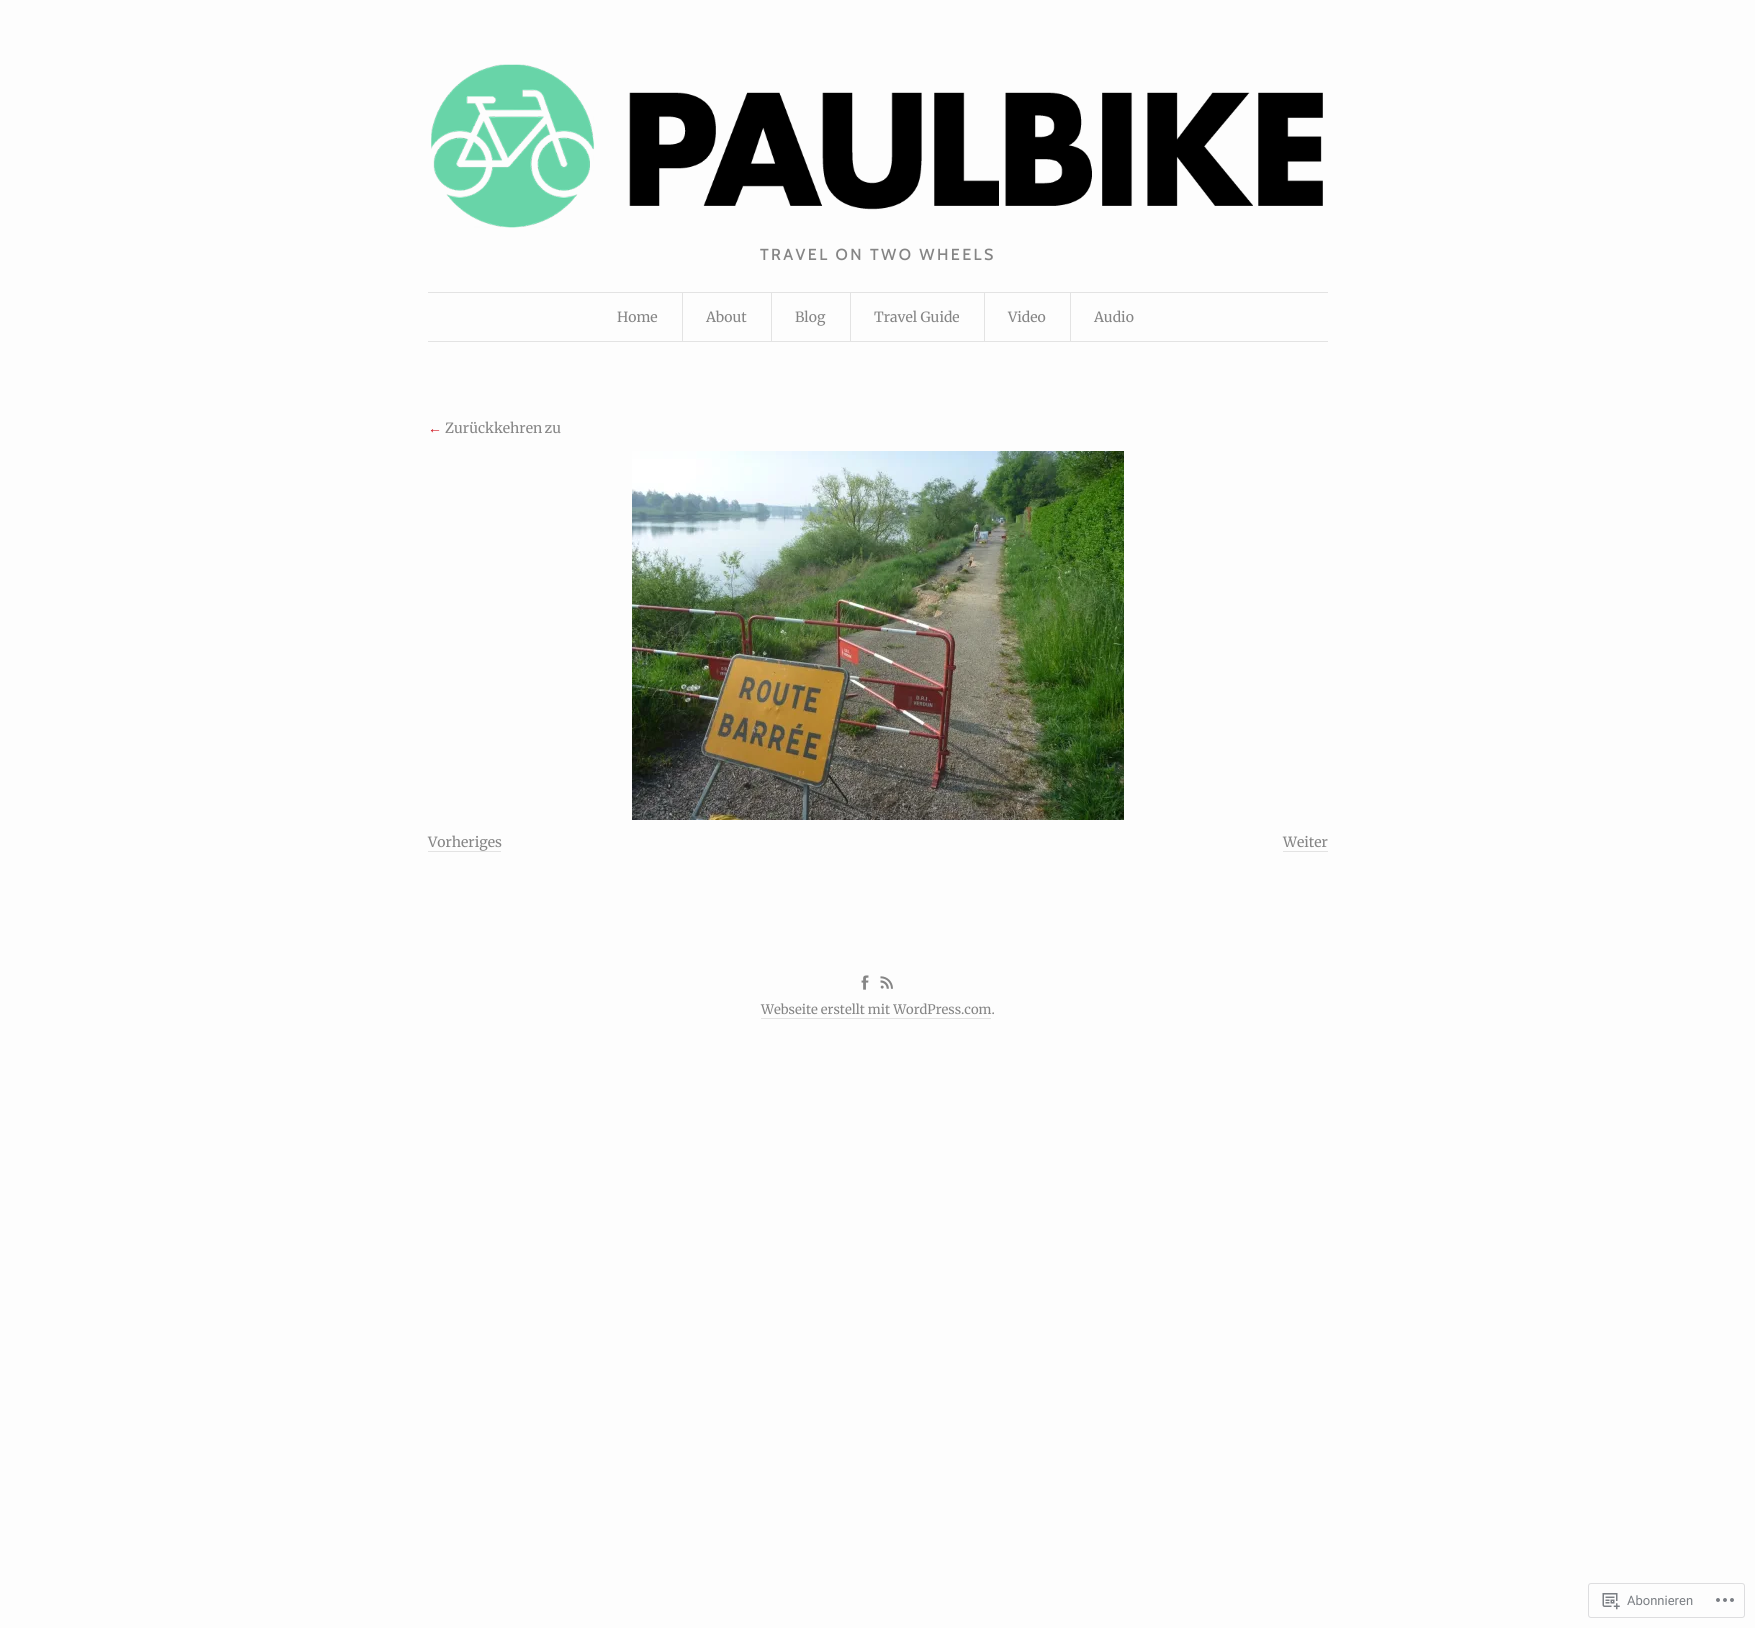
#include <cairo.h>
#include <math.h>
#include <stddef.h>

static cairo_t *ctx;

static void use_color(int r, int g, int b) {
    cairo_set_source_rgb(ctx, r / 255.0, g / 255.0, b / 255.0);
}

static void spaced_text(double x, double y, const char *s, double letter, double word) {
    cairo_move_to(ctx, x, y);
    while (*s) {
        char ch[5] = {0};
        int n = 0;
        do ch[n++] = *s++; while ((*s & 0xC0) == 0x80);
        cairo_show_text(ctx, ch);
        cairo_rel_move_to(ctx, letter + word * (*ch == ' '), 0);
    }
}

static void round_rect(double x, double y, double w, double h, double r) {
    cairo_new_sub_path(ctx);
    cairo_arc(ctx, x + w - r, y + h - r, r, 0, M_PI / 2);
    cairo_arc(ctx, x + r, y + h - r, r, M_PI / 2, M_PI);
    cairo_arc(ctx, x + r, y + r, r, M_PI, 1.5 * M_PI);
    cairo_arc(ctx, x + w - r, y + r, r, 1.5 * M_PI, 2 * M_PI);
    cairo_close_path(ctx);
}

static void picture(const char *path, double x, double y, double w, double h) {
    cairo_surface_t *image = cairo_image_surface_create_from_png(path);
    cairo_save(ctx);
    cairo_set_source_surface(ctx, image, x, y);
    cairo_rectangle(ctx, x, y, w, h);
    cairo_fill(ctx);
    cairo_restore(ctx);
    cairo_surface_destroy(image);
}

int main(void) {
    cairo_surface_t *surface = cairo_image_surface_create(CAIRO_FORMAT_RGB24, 1755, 1628);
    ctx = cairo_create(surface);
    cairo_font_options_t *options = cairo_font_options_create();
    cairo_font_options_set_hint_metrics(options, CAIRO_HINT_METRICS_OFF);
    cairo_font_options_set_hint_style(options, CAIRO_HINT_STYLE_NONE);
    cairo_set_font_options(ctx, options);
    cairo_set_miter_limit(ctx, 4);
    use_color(253, 253, 253);
    cairo_paint(ctx);
    picture("img1.png", 431, 64, 892, 164);
    cairo_select_font_face(ctx, "Cabin Medium", CAIRO_FONT_SLANT_NORMAL, CAIRO_FONT_WEIGHT_NORMAL);
    cairo_set_font_size(ctx, 16);
    use_color(133, 133, 133);
    spaced_text(760, 260, "TRAVEL ON TWO WHEELS", 2.4, 0);
    use_color(227, 227, 227);
    cairo_rectangle(ctx, 428, 292, 900, 1);
    cairo_fill(ctx);
    cairo_rectangle(ctx, 428, 341, 900, 1);
    cairo_fill(ctx);
    cairo_rectangle(ctx, 682, 293, 1, 48);
    cairo_fill(ctx);
    cairo_select_font_face(ctx, "Merriweather", CAIRO_FONT_SLANT_NORMAL, CAIRO_FONT_WEIGHT_NORMAL);
    cairo_set_font_size(ctx, 14);
    use_color(133, 133, 133);
    cairo_move_to(ctx, 617, 322);
    cairo_show_text(ctx, "Home");
    use_color(227, 227, 227);
    cairo_rectangle(ctx, 771, 293, 1, 48);
    cairo_fill(ctx);
    use_color(133, 133, 133);
    cairo_move_to(ctx, 706, 322);
    cairo_show_text(ctx, "About");
    use_color(227, 227, 227);
    cairo_rectangle(ctx, 850, 293, 1, 48);
    cairo_fill(ctx);
    use_color(133, 133, 133);
    cairo_move_to(ctx, 795, 322);
    cairo_show_text(ctx, "Blog");
    use_color(227, 227, 227);
    cairo_rectangle(ctx, 984, 293, 1, 48);
    cairo_fill(ctx);
    use_color(133, 133, 133);
    cairo_move_to(ctx, 874, 322);
    cairo_show_text(ctx, "Travel Guide");
    use_color(227, 227, 227);
    cairo_rectangle(ctx, 1070, 293, 1, 48);
    cairo_fill(ctx);
    use_color(133, 133, 133);
    cairo_move_to(ctx, 1008, 322);
    cairo_show_text(ctx, "Video");
    cairo_move_to(ctx, 1094, 322);
    cairo_show_text(ctx, "Audio");
    cairo_select_font_face(ctx, "Liberation Serif", CAIRO_FONT_SLANT_NORMAL, CAIRO_FONT_WEIGHT_NORMAL);
    use_color(208, 15, 26);
    cairo_move_to(ctx, 428, 433);
    cairo_show_text(ctx, "←");
    cairo_select_font_face(ctx, "Merriweather", CAIRO_FONT_SLANT_NORMAL, CAIRO_FONT_WEIGHT_NORMAL);
    use_color(133, 133, 133);
    spaced_text(445, 433, "Zurückkehren zu", 0, -1);
    picture("img2.png", 632, 451, 492, 369);
    cairo_move_to(ctx, 428, 847);
    cairo_show_text(ctx, "Vorheriges");
    use_color(227, 227, 227);
    cairo_rectangle(ctx, 428, 851, 73, 1);
    cairo_fill(ctx);
    use_color(133, 133, 133);
    cairo_move_to(ctx, 1283, 847);
    cairo_show_text(ctx, "Weiter");
    use_color(227, 227, 227);
    cairo_rectangle(ctx, 1283, 851, 45, 1);
    cairo_fill(ctx);
    picture("img3.png", 861, 975, 8, 15);
    picture("img4.png", 880, 976, 13, 13);
    cairo_set_font_size(ctx, 13);
    use_color(133, 133, 133);
    cairo_move_to(ctx, 761, 1014);
    cairo_show_text(ctx, "Webseite erstellt mit WordPress.com.");
    use_color(227, 227, 227);
    cairo_rectangle(ctx, 761, 1018, 230, 1);
    cairo_fill(ctx);
    round_rect(1588.5, 1583.5, 156, 34, 2.5);
    use_color(221, 221, 223);
    cairo_set_line_width(ctx, 1);
    cairo_stroke(ctx);
    picture("img5.png", 1602, 1593, 18, 17);
    cairo_select_font_face(ctx, "Roboto", CAIRO_FONT_SLANT_NORMAL, CAIRO_FONT_WEIGHT_NORMAL);
    use_color(123, 127, 132);
    cairo_move_to(ctx, 1627, 1605);
    cairo_show_text(ctx, "Abonnieren");
    picture("img6.png", 1716, 1598, 18, 4);
    cairo_surface_write_to_png(surface, "result.png");
    cairo_font_options_destroy(options);
    cairo_destroy(ctx);
    cairo_surface_destroy(surface);
    return 0;
}
